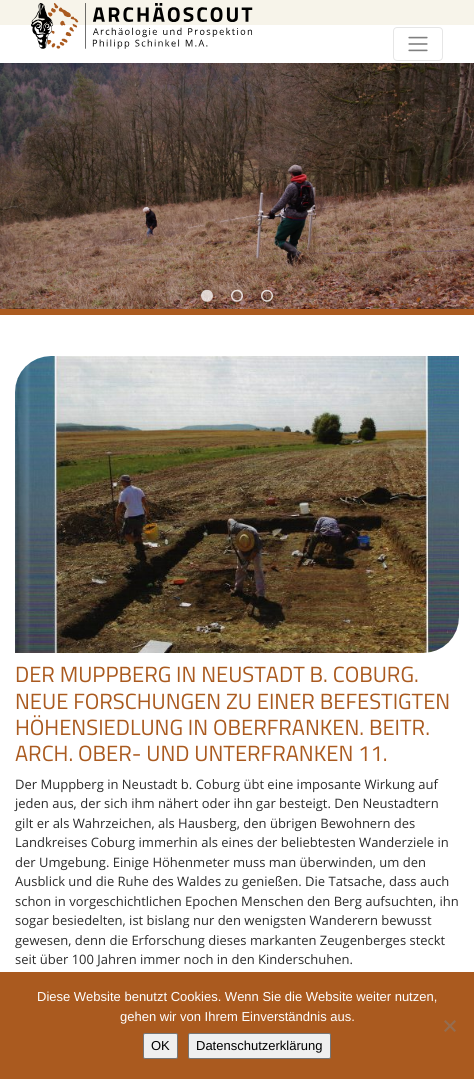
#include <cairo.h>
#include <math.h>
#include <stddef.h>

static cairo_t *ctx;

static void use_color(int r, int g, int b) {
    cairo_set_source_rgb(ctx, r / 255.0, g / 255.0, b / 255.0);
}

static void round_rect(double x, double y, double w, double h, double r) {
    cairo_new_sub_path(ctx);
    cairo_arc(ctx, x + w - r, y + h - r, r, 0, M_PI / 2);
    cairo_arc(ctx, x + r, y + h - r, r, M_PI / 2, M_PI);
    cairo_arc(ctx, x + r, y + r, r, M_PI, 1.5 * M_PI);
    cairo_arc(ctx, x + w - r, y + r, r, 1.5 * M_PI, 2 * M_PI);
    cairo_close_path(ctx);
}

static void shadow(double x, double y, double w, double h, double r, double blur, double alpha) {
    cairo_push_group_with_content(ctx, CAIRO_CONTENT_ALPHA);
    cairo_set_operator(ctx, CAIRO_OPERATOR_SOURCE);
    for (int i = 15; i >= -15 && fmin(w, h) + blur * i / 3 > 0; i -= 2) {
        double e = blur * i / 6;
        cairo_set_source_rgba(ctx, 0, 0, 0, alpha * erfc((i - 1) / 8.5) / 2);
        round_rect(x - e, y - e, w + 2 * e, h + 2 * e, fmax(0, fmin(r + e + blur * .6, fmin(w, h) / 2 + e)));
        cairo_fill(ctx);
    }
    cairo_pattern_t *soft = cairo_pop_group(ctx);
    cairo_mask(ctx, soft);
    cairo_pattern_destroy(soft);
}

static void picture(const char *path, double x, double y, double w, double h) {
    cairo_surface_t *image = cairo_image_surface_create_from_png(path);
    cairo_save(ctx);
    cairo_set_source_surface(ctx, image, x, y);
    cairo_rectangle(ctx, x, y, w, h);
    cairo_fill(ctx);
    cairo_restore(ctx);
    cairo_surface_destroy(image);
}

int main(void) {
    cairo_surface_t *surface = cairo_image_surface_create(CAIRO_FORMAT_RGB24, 474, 1079);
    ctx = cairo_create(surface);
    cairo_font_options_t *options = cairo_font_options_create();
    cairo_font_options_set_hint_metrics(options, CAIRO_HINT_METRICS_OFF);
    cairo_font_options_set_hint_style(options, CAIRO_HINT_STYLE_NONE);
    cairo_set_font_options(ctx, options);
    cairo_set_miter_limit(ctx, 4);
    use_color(255, 255, 255);
    cairo_paint(ctx);
    picture("img3.png", 0, 63, 474, 246);
    use_color(0, 0, 0);
    shadow(0, 2, 474, 63, 0, 2, 0.07);
    use_color(247, 244, 234);
    cairo_rectangle(ctx, 0, 0, 474, 25);
    cairo_fill(ctx);
    use_color(255, 255, 255);
    cairo_rectangle(ctx, 0, 25, 474, 38);
    cairo_fill(ctx);
    picture("img1.png", 31, 3, 222, 46);
    round_rect(393.5, 27.5, 49, 33, 3.5);
    use_color(230, 230, 230);
    cairo_set_line_width(ctx, 1);
    cairo_stroke(ctx);
    picture("img2.png", 408, 36, 20, 16);
    use_color(170, 90, 31);
    cairo_rectangle(ctx, 0, 309, 474, 6);
    cairo_fill(ctx);
    picture("img4.png", 201, 289, 12, 13);
    picture("img5.png", 231, 289, 12, 13);
    picture("img6.png", 261, 289, 12, 13);
    picture("img7.png", 15, 356, 444, 297);
    cairo_select_font_face(ctx, "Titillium", CAIRO_FONT_SLANT_NORMAL, CAIRO_FONT_WEIGHT_NORMAL);
    cairo_set_font_size(ctx, 22);
    cairo_move_to(ctx, 15, 682);
    cairo_show_text(ctx, "DER MUPPBERG IN NEUSTADT B. COBURG.");
    cairo_move_to(ctx, 15, 709);
    cairo_show_text(ctx, "NEUE FORSCHUNGEN ZU EINER BEFESTIGTEN");
    cairo_move_to(ctx, 15, 735);
    cairo_show_text(ctx, "HÖHENSIEDLUNG IN OBERFRANKEN. BEITR.");
    cairo_move_to(ctx, 15, 761);
    cairo_show_text(ctx, "ARCH. OBER- UND UNTERFRANKEN 11.");
    cairo_select_font_face(ctx, "Open Sans", CAIRO_FONT_SLANT_NORMAL, CAIRO_FONT_WEIGHT_NORMAL);
    cairo_set_font_size(ctx, 13);
    use_color(43, 43, 43);
    cairo_move_to(ctx, 15, 789);
    cairo_show_text(ctx, "Der Muppberg in Neustadt b. Coburg übt eine imposante Wirkung auf");
    cairo_move_to(ctx, 15, 808);
    cairo_show_text(ctx, "jeden aus, der sich ihm nähert oder ihn gar besteigt. Den Neustadtern");
    cairo_move_to(ctx, 15, 828);
    cairo_show_text(ctx, "gilt er als Wahrzeichen, als Hausberg, den übrigen Bewohnern des");
    cairo_move_to(ctx, 15, 847);
    cairo_show_text(ctx, "Landkreises Coburg immerhin als eines der beliebtesten Wanderziele in");
    cairo_move_to(ctx, 15, 867);
    cairo_show_text(ctx, "der Umgebung. Einige Höhenmeter muss man überwinden, um den");
    cairo_move_to(ctx, 15, 886);
    cairo_show_text(ctx, "Ausblick und die Ruhe des Waldes zu genießen. Die Tatsache, dass auch");
    cairo_move_to(ctx, 15, 906);
    cairo_show_text(ctx, "schon in vorgeschichtlichen Epochen Menschen den Berg aufsuchten, ihn");
    cairo_move_to(ctx, 15, 925);
    cairo_show_text(ctx, "sogar besiedelten, ist bislang nur den wenigsten Wanderern bewusst");
    cairo_move_to(ctx, 15, 945);
    cairo_show_text(ctx, "gewesen, denn die Erforschung dieses markanten Zeugenberges steckt");
    cairo_move_to(ctx, 15, 964);
    cairo_show_text(ctx, "seit über 100 Jahren immer noch in den Kinderschuhen.");
    use_color(170, 90, 31);
    cairo_rectangle(ctx, 0, 972, 474, 107);
    cairo_fill(ctx);
    cairo_select_font_face(ctx, "Liberation Sans", CAIRO_FONT_SLANT_NORMAL, CAIRO_FONT_WEIGHT_NORMAL);
    use_color(255, 255, 255);
    cairo_move_to(ctx, 37, 1001);
    cairo_show_text(ctx, "Diese Website benutzt Cookies. Wenn Sie die Website weiter nutzen,");
    cairo_move_to(ctx, 120, 1021);
    cairo_show_text(ctx, "gehen wir von Ihrem Einverständnis aus.");
    use_color(149, 109, 80);
    cairo_new_path(ctx);
    cairo_move_to(ctx, 454.5, 1020);
    cairo_line_to(ctx, 456, 1021.5);
    cairo_line_to(ctx, 445.5, 1032);
    cairo_line_to(ctx, 444, 1030.5);
    cairo_close_path(ctx);
    cairo_fill(ctx);
    cairo_new_path(ctx);
    cairo_move_to(ctx, 444, 1021.5);
    cairo_line_to(ctx, 445.5, 1020);
    cairo_line_to(ctx, 456, 1030.5);
    cairo_line_to(ctx, 454.5, 1032);
    cairo_close_path(ctx);
    cairo_fill(ctx);
    use_color(239, 239, 239);
    round_rect(143.5, 1033.5, 34, 25, 1.5);
    cairo_fill_preserve(ctx);
    use_color(118, 118, 118);
    cairo_stroke(ctx);
    use_color(0, 0, 0);
    cairo_move_to(ctx, 151, 1050);
    cairo_show_text(ctx, "OK");
    use_color(239, 239, 239);
    round_rect(188.5, 1033.5, 142, 25, 1.5);
    cairo_fill_preserve(ctx);
    use_color(118, 118, 118);
    cairo_stroke(ctx);
    use_color(0, 0, 0);
    cairo_move_to(ctx, 196, 1050);
    cairo_show_text(ctx, "Datenschutzerklärung");
    cairo_surface_write_to_png(surface, "result.png");
    cairo_font_options_destroy(options);
    cairo_destroy(ctx);
    cairo_surface_destroy(surface);
    return 0;
}
